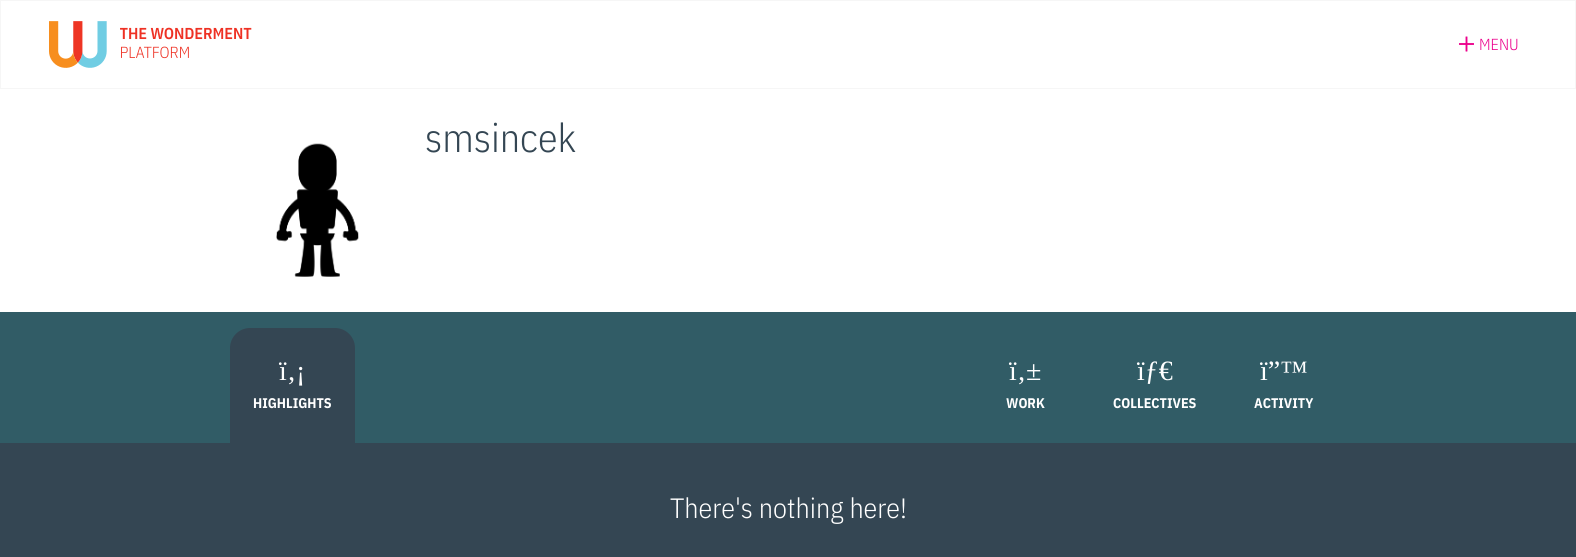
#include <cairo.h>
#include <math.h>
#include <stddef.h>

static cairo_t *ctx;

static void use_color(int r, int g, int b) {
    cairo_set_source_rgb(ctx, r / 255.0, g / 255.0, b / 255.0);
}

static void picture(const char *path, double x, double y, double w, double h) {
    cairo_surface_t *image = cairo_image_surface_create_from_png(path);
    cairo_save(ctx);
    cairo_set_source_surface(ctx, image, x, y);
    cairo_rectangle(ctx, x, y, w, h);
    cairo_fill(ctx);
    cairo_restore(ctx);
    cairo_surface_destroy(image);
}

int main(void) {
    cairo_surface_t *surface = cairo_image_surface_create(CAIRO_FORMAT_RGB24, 1576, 557);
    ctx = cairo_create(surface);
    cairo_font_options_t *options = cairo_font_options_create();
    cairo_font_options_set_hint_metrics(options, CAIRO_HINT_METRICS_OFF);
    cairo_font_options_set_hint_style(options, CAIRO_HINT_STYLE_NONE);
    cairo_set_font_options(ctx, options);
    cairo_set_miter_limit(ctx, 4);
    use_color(255, 255, 255);
    cairo_paint(ctx);
    cairo_rectangle(ctx, 0.5, 0.5, 1575, 88);
    use_color(246, 246, 246);
    cairo_set_line_width(ctx, 1);
    cairo_stroke(ctx);
    picture("img1.png", 49, 21, 203, 47);
    picture("img2.png", 1459, 36, 15, 16);
    cairo_select_font_face(ctx, "IBM Plex Sans Condensed Light", CAIRO_FONT_SLANT_NORMAL, CAIRO_FONT_WEIGHT_NORMAL);
    cairo_set_font_size(ctx, 16);
    use_color(236, 0, 140);
    cairo_move_to(ctx, 1479, 50);
    cairo_show_text(ctx, "MENU");
    cairo_set_font_size(ctx, 40);
    use_color(52, 70, 83);
    cairo_move_to(ctx, 425, 152);
    cairo_show_text(ctx, "smsincek");
    picture("img4.png", 276, 189, 83, 88);
    picture("img3.png", 298, 143, 39, 48);
    use_color(49, 92, 102);
    cairo_rectangle(ctx, 0, 312, 1576, 131);
    cairo_fill(ctx);
    use_color(52, 70, 83);
    cairo_new_path(ctx);
    cairo_move_to(ctx, 250, 328);
    cairo_line_to(ctx, 335, 328);
    cairo_curve_to(ctx, 346, 328, 355, 337, 355, 348);
    cairo_line_to(ctx, 355, 443);
    cairo_line_to(ctx, 230, 443);
    cairo_line_to(ctx, 230, 348);
    cairo_curve_to(ctx, 230, 337, 239, 328, 250, 328);
    cairo_close_path(ctx);
    cairo_fill(ctx);
    cairo_select_font_face(ctx, "Liberation Serif", CAIRO_FONT_SLANT_NORMAL, CAIRO_FONT_WEIGHT_NORMAL);
    cairo_set_font_size(ctx, 28);
    use_color(255, 255, 255);
    cairo_move_to(ctx, 279, 380);
    cairo_show_text(ctx, "ï‚¡");
    cairo_select_font_face(ctx, "IBM Plex Sans Condensed", CAIRO_FONT_SLANT_NORMAL, CAIRO_FONT_WEIGHT_BOLD);
    cairo_set_font_size(ctx, 14);
    cairo_move_to(ctx, 253, 408);
    cairo_show_text(ctx, "HIGHLIGHTS");
    cairo_select_font_face(ctx, "Liberation Serif", CAIRO_FONT_SLANT_NORMAL, CAIRO_FONT_WEIGHT_NORMAL);
    cairo_set_font_size(ctx, 28);
    cairo_move_to(ctx, 1009, 380);
    cairo_show_text(ctx, "ï‚±");
    cairo_select_font_face(ctx, "IBM Plex Sans Condensed", CAIRO_FONT_SLANT_NORMAL, CAIRO_FONT_WEIGHT_BOLD);
    cairo_set_font_size(ctx, 14);
    cairo_move_to(ctx, 1006, 408);
    cairo_show_text(ctx, "WORK");
    cairo_select_font_face(ctx, "Liberation Serif", CAIRO_FONT_SLANT_NORMAL, CAIRO_FONT_WEIGHT_NORMAL);
    cairo_set_font_size(ctx, 28);
    cairo_move_to(ctx, 1137, 380);
    cairo_show_text(ctx, "ïƒ€");
    cairo_select_font_face(ctx, "IBM Plex Sans Condensed", CAIRO_FONT_SLANT_NORMAL, CAIRO_FONT_WEIGHT_BOLD);
    cairo_set_font_size(ctx, 14);
    cairo_move_to(ctx, 1113, 408);
    cairo_show_text(ctx, "COLLECTIVES");
    cairo_select_font_face(ctx, "Liberation Serif", CAIRO_FONT_SLANT_NORMAL, CAIRO_FONT_WEIGHT_NORMAL);
    cairo_set_font_size(ctx, 28);
    cairo_move_to(ctx, 1260, 380);
    cairo_show_text(ctx, "ï”™");
    cairo_select_font_face(ctx, "IBM Plex Sans Condensed", CAIRO_FONT_SLANT_NORMAL, CAIRO_FONT_WEIGHT_BOLD);
    cairo_set_font_size(ctx, 14);
    cairo_move_to(ctx, 1254, 408);
    cairo_show_text(ctx, "ACTIVITY");
    use_color(52, 70, 83);
    cairo_rectangle(ctx, 0, 443, 1576, 114);
    cairo_fill(ctx);
    cairo_select_font_face(ctx, "IBM Plex Sans Condensed Light", CAIRO_FONT_SLANT_NORMAL, CAIRO_FONT_WEIGHT_NORMAL);
    cairo_set_font_size(ctx, 28);
    use_color(255, 255, 255);
    cairo_move_to(ctx, 670, 518);
    cairo_show_text(ctx, "There's nothing here!");
    cairo_surface_write_to_png(surface, "result.png");
    cairo_font_options_destroy(options);
    cairo_destroy(ctx);
    cairo_surface_destroy(surface);
    return 0;
}
